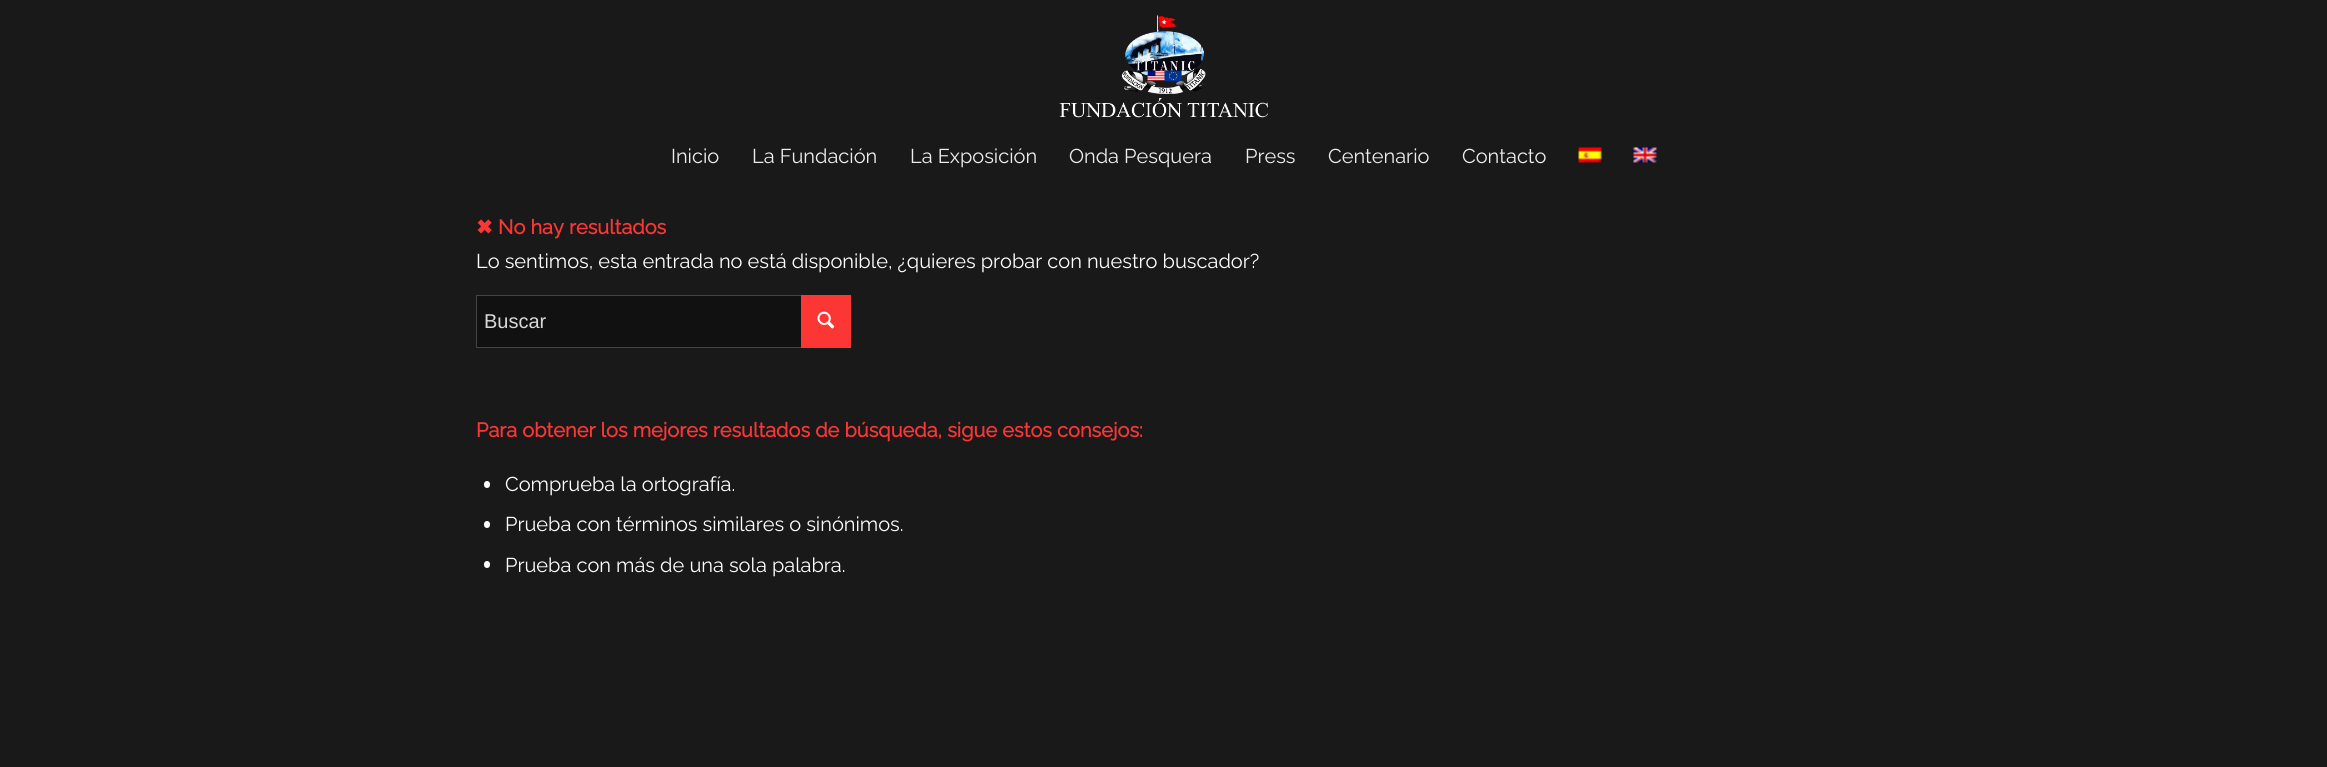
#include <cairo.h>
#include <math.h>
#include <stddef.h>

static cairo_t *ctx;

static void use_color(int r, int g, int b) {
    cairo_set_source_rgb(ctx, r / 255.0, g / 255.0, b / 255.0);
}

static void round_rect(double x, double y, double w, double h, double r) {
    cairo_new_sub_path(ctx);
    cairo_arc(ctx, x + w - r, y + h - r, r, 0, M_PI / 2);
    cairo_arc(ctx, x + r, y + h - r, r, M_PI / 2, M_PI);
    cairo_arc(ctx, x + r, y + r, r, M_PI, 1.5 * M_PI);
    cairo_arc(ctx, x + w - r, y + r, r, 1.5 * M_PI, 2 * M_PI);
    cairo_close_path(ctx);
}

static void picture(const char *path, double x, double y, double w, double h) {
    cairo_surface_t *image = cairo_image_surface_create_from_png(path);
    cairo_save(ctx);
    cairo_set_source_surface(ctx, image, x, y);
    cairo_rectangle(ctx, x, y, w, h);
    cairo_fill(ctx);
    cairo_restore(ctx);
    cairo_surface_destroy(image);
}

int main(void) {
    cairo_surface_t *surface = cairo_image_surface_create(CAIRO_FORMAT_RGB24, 2327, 767);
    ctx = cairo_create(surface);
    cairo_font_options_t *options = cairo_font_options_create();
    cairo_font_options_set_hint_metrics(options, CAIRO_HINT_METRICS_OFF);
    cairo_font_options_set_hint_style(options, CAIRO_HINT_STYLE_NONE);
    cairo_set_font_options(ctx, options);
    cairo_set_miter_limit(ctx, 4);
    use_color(25, 25, 25);
    cairo_paint(ctx);
    picture("img1.png", 1059, 14, 209, 104);
    cairo_select_font_face(ctx, "Raleway Thin", CAIRO_FONT_SLANT_NORMAL, CAIRO_FONT_WEIGHT_NORMAL);
    cairo_set_font_size(ctx, 20);
    use_color(237, 237, 237);
    cairo_move_to(ctx, 671, 163);
    cairo_show_text(ctx, "Inicio");
    cairo_move_to(ctx, 752, 163);
    cairo_show_text(ctx, "La Fundación");
    cairo_move_to(ctx, 910, 163);
    cairo_show_text(ctx, "La Exposición");
    cairo_move_to(ctx, 1069, 163);
    cairo_show_text(ctx, "Onda Pesquera");
    cairo_move_to(ctx, 1245, 163);
    cairo_show_text(ctx, "Press");
    cairo_move_to(ctx, 1328, 163);
    cairo_show_text(ctx, "Centenario");
    cairo_move_to(ctx, 1462, 163);
    cairo_show_text(ctx, "Contacto");
    picture("img2.png", 1578, 147, 24, 16);
    picture("img3.png", 1633, 147, 24, 16);
    cairo_select_font_face(ctx, "DejaVu Sans", CAIRO_FONT_SLANT_NORMAL, CAIRO_FONT_WEIGHT_BOLD);
    use_color(252, 53, 53);
    cairo_move_to(ctx, 476, 234);
    cairo_show_text(ctx, "✖");
    cairo_select_font_face(ctx, "Raleway", CAIRO_FONT_SLANT_NORMAL, CAIRO_FONT_WEIGHT_BOLD);
    cairo_move_to(ctx, 498, 234);
    cairo_show_text(ctx, "No hay resultados");
    cairo_select_font_face(ctx, "Raleway Thin", CAIRO_FONT_SLANT_NORMAL, CAIRO_FONT_WEIGHT_NORMAL);
    use_color(255, 255, 255);
    cairo_move_to(ctx, 476, 268);
    cairo_show_text(ctx, "Lo sentimos, esta entrada no está disponible, ¿quieres probar con nuestro buscador?");
    use_color(17, 17, 17);
    cairo_rectangle(ctx, 477, 296, 324, 51);
    cairo_fill(ctx);
    cairo_rectangle(ctx, 476.5, 295.5, 374, 52);
    use_color(68, 68, 68);
    cairo_set_line_width(ctx, 1);
    cairo_stroke(ctx);
    cairo_select_font_face(ctx, "Liberation Sans", CAIRO_FONT_SLANT_NORMAL, CAIRO_FONT_WEIGHT_NORMAL);
    use_color(217, 217, 217);
    cairo_move_to(ctx, 484, 328);
    cairo_show_text(ctx, "Buscar");
    use_color(252, 53, 53);
    cairo_rectangle(ctx, 801, 295, 50, 53);
    cairo_fill(ctx);
    picture("img4.png", 817, 311, 18, 18);
    cairo_select_font_face(ctx, "Raleway", CAIRO_FONT_SLANT_NORMAL, CAIRO_FONT_WEIGHT_BOLD);
    cairo_move_to(ctx, 476, 437);
    cairo_show_text(ctx, "Para obtener los mejores resultados de búsqueda, sigue estos consejos:");
    use_color(255, 255, 255);
    round_rect(484, 481, 6, 7, 3);
    cairo_fill(ctx);
    cairo_select_font_face(ctx, "Raleway Thin", CAIRO_FONT_SLANT_NORMAL, CAIRO_FONT_WEIGHT_NORMAL);
    cairo_move_to(ctx, 505, 491);
    cairo_show_text(ctx, "Comprueba la ortografía.");
    round_rect(484, 521, 6, 7, 3);
    cairo_fill(ctx);
    cairo_move_to(ctx, 505, 531);
    cairo_show_text(ctx, "Prueba con términos similares o sinónimos.");
    round_rect(484, 561, 6, 7, 3);
    cairo_fill(ctx);
    cairo_move_to(ctx, 505, 572);
    cairo_show_text(ctx, "Prueba con más de una sola palabra.");
    cairo_surface_write_to_png(surface, "result.png");
    cairo_font_options_destroy(options);
    cairo_destroy(ctx);
    cairo_surface_destroy(surface);
    return 0;
}
